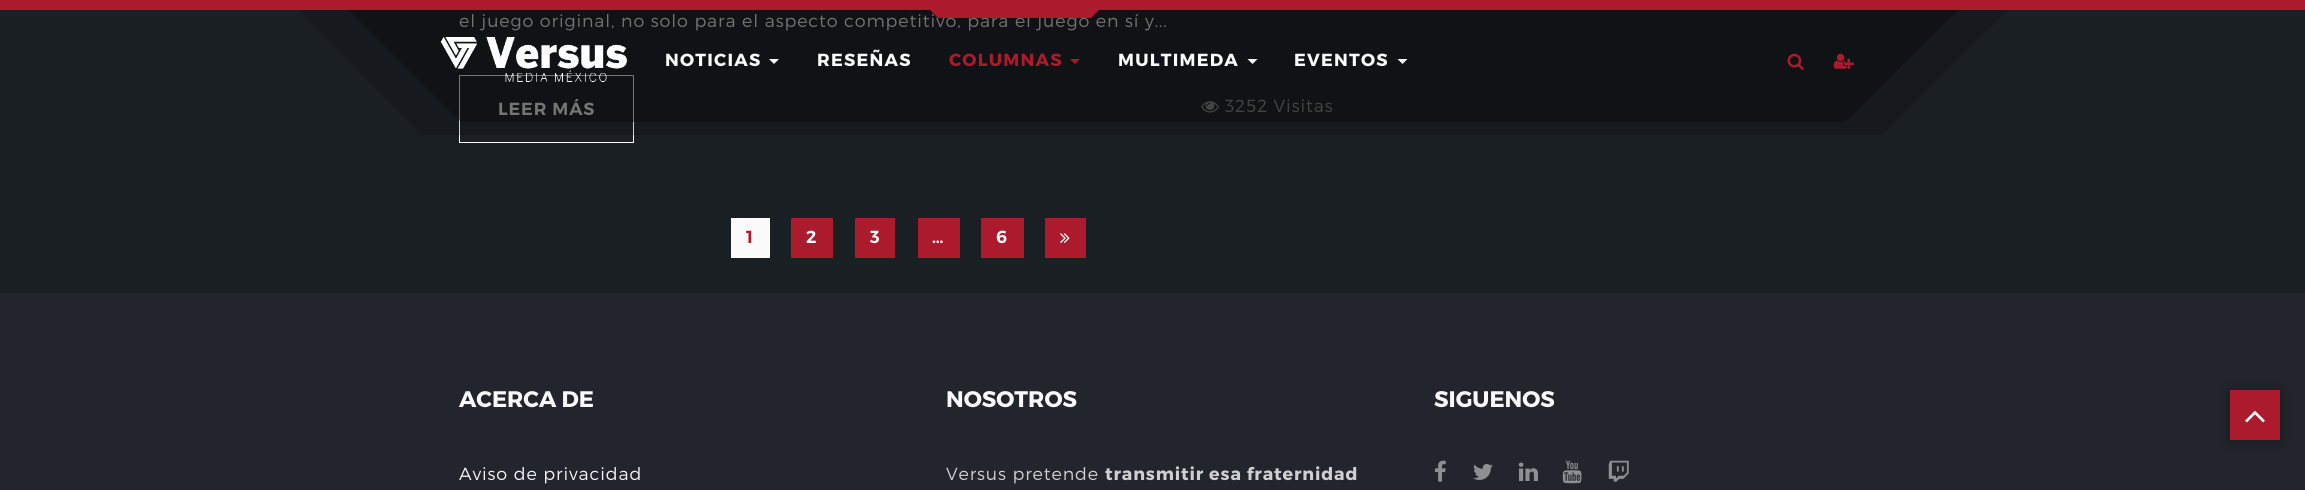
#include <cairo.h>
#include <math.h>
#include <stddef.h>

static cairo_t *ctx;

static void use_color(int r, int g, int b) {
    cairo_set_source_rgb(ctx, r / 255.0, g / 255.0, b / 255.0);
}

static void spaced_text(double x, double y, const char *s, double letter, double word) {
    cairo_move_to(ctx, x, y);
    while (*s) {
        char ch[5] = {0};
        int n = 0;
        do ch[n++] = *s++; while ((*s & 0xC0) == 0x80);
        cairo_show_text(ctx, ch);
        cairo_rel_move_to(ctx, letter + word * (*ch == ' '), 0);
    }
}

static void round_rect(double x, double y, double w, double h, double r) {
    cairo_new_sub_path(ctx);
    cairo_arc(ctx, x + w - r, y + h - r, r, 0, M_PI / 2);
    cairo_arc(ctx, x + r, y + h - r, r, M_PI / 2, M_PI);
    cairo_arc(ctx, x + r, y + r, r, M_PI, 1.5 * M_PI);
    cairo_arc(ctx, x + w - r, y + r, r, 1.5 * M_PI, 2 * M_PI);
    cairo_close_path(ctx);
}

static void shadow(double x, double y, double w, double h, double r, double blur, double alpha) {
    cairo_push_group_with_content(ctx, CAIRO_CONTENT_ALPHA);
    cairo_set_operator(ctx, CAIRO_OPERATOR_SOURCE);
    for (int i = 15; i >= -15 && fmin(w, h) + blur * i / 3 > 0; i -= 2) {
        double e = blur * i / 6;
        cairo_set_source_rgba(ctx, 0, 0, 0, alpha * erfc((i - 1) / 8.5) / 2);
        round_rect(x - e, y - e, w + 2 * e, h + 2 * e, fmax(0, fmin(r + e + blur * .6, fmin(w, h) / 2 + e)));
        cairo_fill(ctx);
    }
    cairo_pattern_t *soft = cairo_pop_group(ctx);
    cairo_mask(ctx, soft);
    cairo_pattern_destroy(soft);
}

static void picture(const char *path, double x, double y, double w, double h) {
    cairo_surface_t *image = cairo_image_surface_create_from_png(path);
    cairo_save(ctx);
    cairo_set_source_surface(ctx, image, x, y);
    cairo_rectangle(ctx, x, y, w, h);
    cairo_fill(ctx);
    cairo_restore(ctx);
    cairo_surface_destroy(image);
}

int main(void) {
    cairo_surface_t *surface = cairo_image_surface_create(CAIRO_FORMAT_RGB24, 2305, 490);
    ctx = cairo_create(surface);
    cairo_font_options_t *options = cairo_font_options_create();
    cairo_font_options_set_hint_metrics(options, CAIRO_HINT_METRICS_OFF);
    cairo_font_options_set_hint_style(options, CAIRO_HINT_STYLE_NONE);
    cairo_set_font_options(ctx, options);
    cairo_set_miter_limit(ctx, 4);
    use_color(26, 31, 36);
    cairo_paint(ctx);
    cairo_select_font_face(ctx, "Montserrat Light", CAIRO_FONT_SLANT_NORMAL, CAIRO_FONT_WEIGHT_NORMAL);
    cairo_set_font_size(ctx, 17.5);
    use_color(243, 243, 243);
    spaced_text(459, 27, "el juego original, no solo para el aspecto competitivo, para el juego en sí y...", 0.88, 0);
    cairo_rectangle(ctx, 459.5, 75.5, 174, 67);
    use_color(250, 250, 250);
    cairo_set_line_width(ctx, 1);
    cairo_stroke(ctx);
    cairo_select_font_face(ctx, "Montserrat SemiBold", CAIRO_FONT_SLANT_NORMAL, CAIRO_FONT_WEIGHT_NORMAL);
    spaced_text(498, 115, "LEER MÁS", 0.88, 0);
    picture("img1.png", 1201, 101, 18, 12);
    cairo_select_font_face(ctx, "Montserrat Light", CAIRO_FONT_SLANT_NORMAL, CAIRO_FONT_WEIGHT_NORMAL);
    use_color(138, 141, 143);
    spaced_text(1225, 112, "3252 Visitas", 0.88, 0);
    use_color(250, 250, 250);
    cairo_rectangle(ctx, 731, 218, 39, 40);
    cairo_fill(ctx);
    cairo_select_font_face(ctx, "Montserrat SemiBold", CAIRO_FONT_SLANT_NORMAL, CAIRO_FONT_WEIGHT_NORMAL);
    use_color(171, 27, 45);
    spaced_text(746, 243, "1", 0.88, 0);
    cairo_rectangle(ctx, 791, 218, 42, 40);
    cairo_fill(ctx);
    use_color(250, 250, 250);
    spaced_text(806, 243, "2", 0.88, 0);
    use_color(171, 27, 45);
    cairo_rectangle(ctx, 855, 218, 40, 40);
    cairo_fill(ctx);
    use_color(250, 250, 250);
    spaced_text(870, 243, "3", 0.88, 0);
    use_color(171, 27, 45);
    cairo_rectangle(ctx, 918, 218, 42, 40);
    cairo_fill(ctx);
    use_color(250, 250, 250);
    spaced_text(932, 243, "…", 0.88, 0);
    use_color(171, 27, 45);
    cairo_rectangle(ctx, 981, 218, 43, 40);
    cairo_fill(ctx);
    use_color(250, 250, 250);
    spaced_text(996, 243, "6", 0.88, 0);
    use_color(171, 27, 45);
    cairo_rectangle(ctx, 1045, 218, 41, 40);
    cairo_fill(ctx);
    picture("img2.png", 1060, 233, 10, 10);
    cairo_rectangle(ctx, 0, 0, 2305, 10);
    cairo_fill(ctx);
    cairo_set_source_rgba(ctx, 0.039, 0.039, 0.039, 0.18);
    cairo_new_path(ctx);
    cairo_move_to(ctx, 298, 10);
    cairo_line_to(ctx, 2008, 10);
    cairo_line_to(ctx, 1882, 135);
    cairo_line_to(ctx, 422, 135);
    cairo_close_path(ctx);
    cairo_fill(ctx);
    cairo_set_source_rgba(ctx, 0.039, 0.039, 0.039, 0.45);
    cairo_new_path(ctx);
    cairo_move_to(ctx, 349, 10);
    cairo_line_to(ctx, 1958, 10);
    cairo_line_to(ctx, 1845, 122);
    cairo_line_to(ctx, 461, 122);
    cairo_close_path(ctx);
    cairo_fill(ctx);
    picture("img3.png", 440, 37, 187, 45);
    cairo_select_font_face(ctx, "Montserrat", CAIRO_FONT_SLANT_NORMAL, CAIRO_FONT_WEIGHT_BOLD);
    use_color(250, 250, 250);
    spaced_text(665, 66, "NOTICIAS", 1.25, 0);
    cairo_new_path(ctx);
    cairo_move_to(ctx, 769, 59);
    cairo_line_to(ctx, 779, 59);
    cairo_line_to(ctx, 774, 64);
    cairo_close_path(ctx);
    cairo_fill(ctx);
    spaced_text(817, 66, "RESEÑAS", 1.25, 0);
    use_color(171, 27, 45);
    cairo_new_path(ctx);
    cairo_move_to(ctx, 930, 10);
    cairo_line_to(ctx, 1099, 10);
    cairo_line_to(ctx, 1091, 18);
    cairo_line_to(ctx, 938, 18);
    cairo_close_path(ctx);
    cairo_fill(ctx);
    spaced_text(949, 66, "COLUMNAS", 1.25, 0);
    cairo_new_path(ctx);
    cairo_move_to(ctx, 1070, 59);
    cairo_line_to(ctx, 1080, 59);
    cairo_line_to(ctx, 1075, 64);
    cairo_close_path(ctx);
    cairo_fill(ctx);
    use_color(250, 250, 250);
    spaced_text(1118, 66, "MULTIMEDA", 1.25, 0);
    cairo_new_path(ctx);
    cairo_move_to(ctx, 1247.5, 59);
    cairo_line_to(ctx, 1257.5, 59);
    cairo_line_to(ctx, 1252.5, 64);
    cairo_close_path(ctx);
    cairo_fill(ctx);
    spaced_text(1294, 66, "EVENTOS", 1.25, 0);
    cairo_new_path(ctx);
    cairo_move_to(ctx, 1397.5, 59);
    cairo_line_to(ctx, 1407.5, 59);
    cairo_line_to(ctx, 1402.5, 64);
    cairo_close_path(ctx);
    cairo_fill(ctx);
    picture("img4.png", 1787, 53, 17, 17);
    picture("img5.png", 1833, 53, 21, 16);
    use_color(34, 37, 43);
    cairo_rectangle(ctx, 0, 293, 2305, 197);
    cairo_fill(ctx);
    cairo_set_font_size(ctx, 22.5);
    use_color(250, 250, 250);
    cairo_move_to(ctx, 459, 407);
    cairo_show_text(ctx, "ACERCA DE");
    cairo_select_font_face(ctx, "Montserrat Light", CAIRO_FONT_SLANT_NORMAL, CAIRO_FONT_WEIGHT_NORMAL);
    cairo_set_font_size(ctx, 17.5);
    use_color(243, 243, 243);
    spaced_text(459, 480, "Aviso de privacidad", 0.88, 0);
    cairo_select_font_face(ctx, "Montserrat", CAIRO_FONT_SLANT_NORMAL, CAIRO_FONT_WEIGHT_BOLD);
    cairo_set_font_size(ctx, 22.5);
    use_color(250, 250, 250);
    cairo_move_to(ctx, 946, 407);
    cairo_show_text(ctx, "NOSOTROS");
    cairo_select_font_face(ctx, "Montserrat Light", CAIRO_FONT_SLANT_NORMAL, CAIRO_FONT_WEIGHT_NORMAL);
    cairo_set_font_size(ctx, 17.5);
    use_color(207, 207, 209);
    spaced_text(946, 480, "Versus pretende", 0.88, 0);
    cairo_select_font_face(ctx, "Montserrat", CAIRO_FONT_SLANT_NORMAL, CAIRO_FONT_WEIGHT_BOLD);
    spaced_text(1105, 480, "transmitir esa fraternidad", 0.88, 0);
    cairo_set_font_size(ctx, 22.5);
    use_color(250, 250, 250);
    cairo_move_to(ctx, 1434, 407);
    cairo_show_text(ctx, "SIGUENOS");
    picture("img6.png", 1434, 460, 12, 22);
    picture("img7.png", 1473, 463, 20, 17);
    picture("img8.png", 1518, 462, 20, 19);
    picture("img9.png", 1562, 460, 20, 24);
    picture("img10.png", 1608, 460, 21, 22);
    use_color(0, 0, 0);
    shadow(2230, 391, 50, 50, 0, 7.5, 0.35);
    use_color(171, 27, 45);
    cairo_rectangle(ctx, 2230, 390, 50, 50);
    cairo_fill(ctx);
    picture("img11.png", 2245, 411, 20, 12);
    cairo_surface_write_to_png(surface, "result.png");
    cairo_font_options_destroy(options);
    cairo_destroy(ctx);
    cairo_surface_destroy(surface);
    return 0;
}
